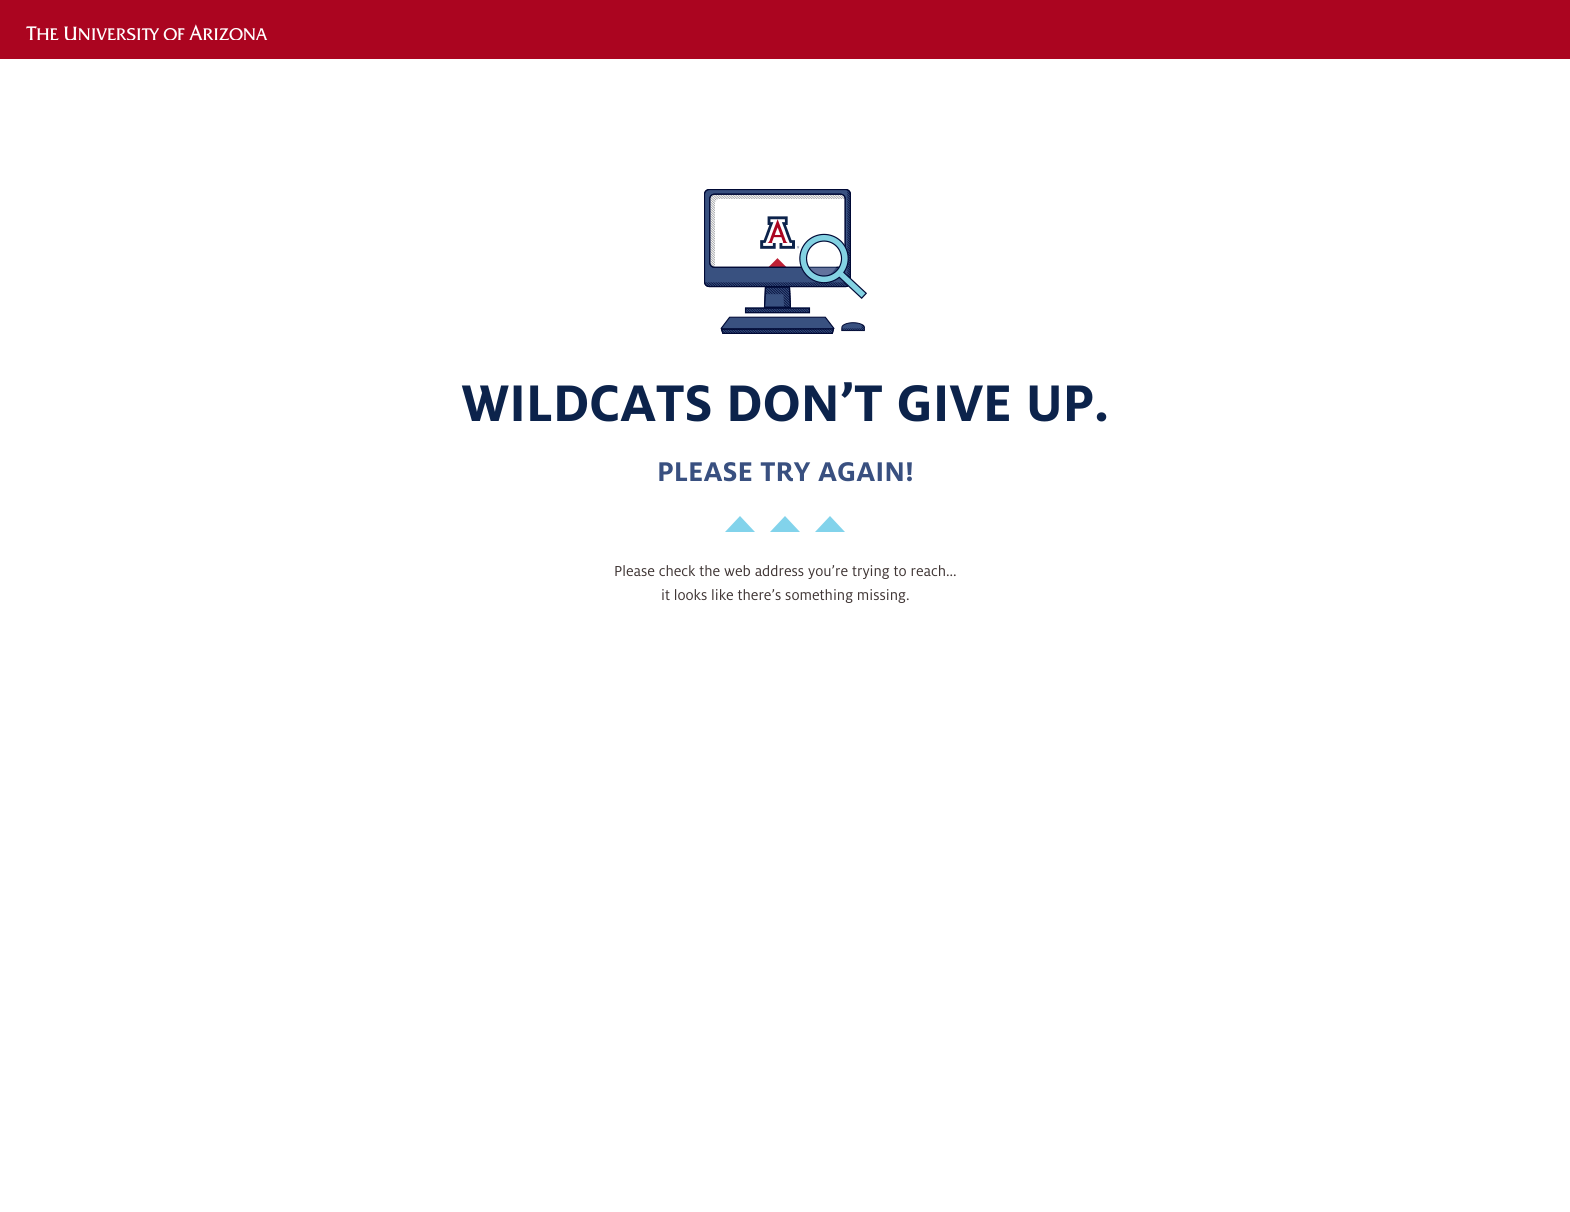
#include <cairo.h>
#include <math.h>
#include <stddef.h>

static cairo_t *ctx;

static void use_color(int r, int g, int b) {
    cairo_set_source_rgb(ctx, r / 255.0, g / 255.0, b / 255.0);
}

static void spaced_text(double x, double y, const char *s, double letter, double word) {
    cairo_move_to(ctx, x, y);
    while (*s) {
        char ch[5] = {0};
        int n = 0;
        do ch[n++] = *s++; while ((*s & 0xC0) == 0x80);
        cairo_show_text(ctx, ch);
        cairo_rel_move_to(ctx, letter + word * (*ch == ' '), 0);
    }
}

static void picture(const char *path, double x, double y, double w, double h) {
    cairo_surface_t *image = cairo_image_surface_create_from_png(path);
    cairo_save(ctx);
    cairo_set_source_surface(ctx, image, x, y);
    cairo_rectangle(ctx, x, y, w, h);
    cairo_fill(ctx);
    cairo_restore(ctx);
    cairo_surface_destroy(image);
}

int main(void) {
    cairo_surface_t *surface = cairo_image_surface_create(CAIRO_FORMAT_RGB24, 1570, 1212);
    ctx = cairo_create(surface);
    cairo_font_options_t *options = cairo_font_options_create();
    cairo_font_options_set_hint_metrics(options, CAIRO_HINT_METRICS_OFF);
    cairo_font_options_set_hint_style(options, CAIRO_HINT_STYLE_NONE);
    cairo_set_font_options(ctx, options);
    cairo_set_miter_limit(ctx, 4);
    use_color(255, 255, 255);
    cairo_paint(ctx);
    use_color(171, 5, 32);
    cairo_rectangle(ctx, 0, 0, 1570, 59);
    cairo_fill(ctx);
    picture("img1.png", 26, 24, 242, 16);
    picture("img2.png", 704, 189, 163, 145);
    cairo_select_font_face(ctx, "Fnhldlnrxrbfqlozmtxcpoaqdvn", CAIRO_FONT_SLANT_NORMAL, CAIRO_FONT_WEIGHT_BOLD);
    cairo_set_font_size(ctx, 57);
    use_color(12, 35, 75);
    spaced_text(461, 421, "WILDCATS DON’T GIVE UP.", -0.4, 0);
    cairo_set_font_size(ctx, 30);
    use_color(57, 80, 128);
    cairo_move_to(ctx, 657, 481);
    cairo_show_text(ctx, "PLEASE TRY AGAIN!");
    use_color(130, 211, 235);
    cairo_new_path(ctx);
    cairo_move_to(ctx, 755, 532);
    cairo_line_to(ctx, 725, 532);
    cairo_line_to(ctx, 740, 516);
    cairo_close_path(ctx);
    cairo_move_to(ctx, 845, 532);
    cairo_line_to(ctx, 815, 532);
    cairo_line_to(ctx, 830, 516);
    cairo_close_path(ctx);
    cairo_move_to(ctx, 800, 532);
    cairo_line_to(ctx, 770, 532);
    cairo_line_to(ctx, 785, 516);
    cairo_close_path(ctx);
    cairo_fill(ctx);
    cairo_select_font_face(ctx, "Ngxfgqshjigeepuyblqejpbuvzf", CAIRO_FONT_SLANT_NORMAL, CAIRO_FONT_WEIGHT_NORMAL);
    cairo_set_font_size(ctx, 16);
    use_color(64, 54, 53);
    cairo_move_to(ctx, 614, 576);
    cairo_show_text(ctx, "Please check the web address you’re trying to reach...");
    cairo_move_to(ctx, 661, 600);
    cairo_show_text(ctx, "it looks like there’s something missing.");
    cairo_surface_write_to_png(surface, "result.png");
    cairo_font_options_destroy(options);
    cairo_destroy(ctx);
    cairo_surface_destroy(surface);
    return 0;
}
